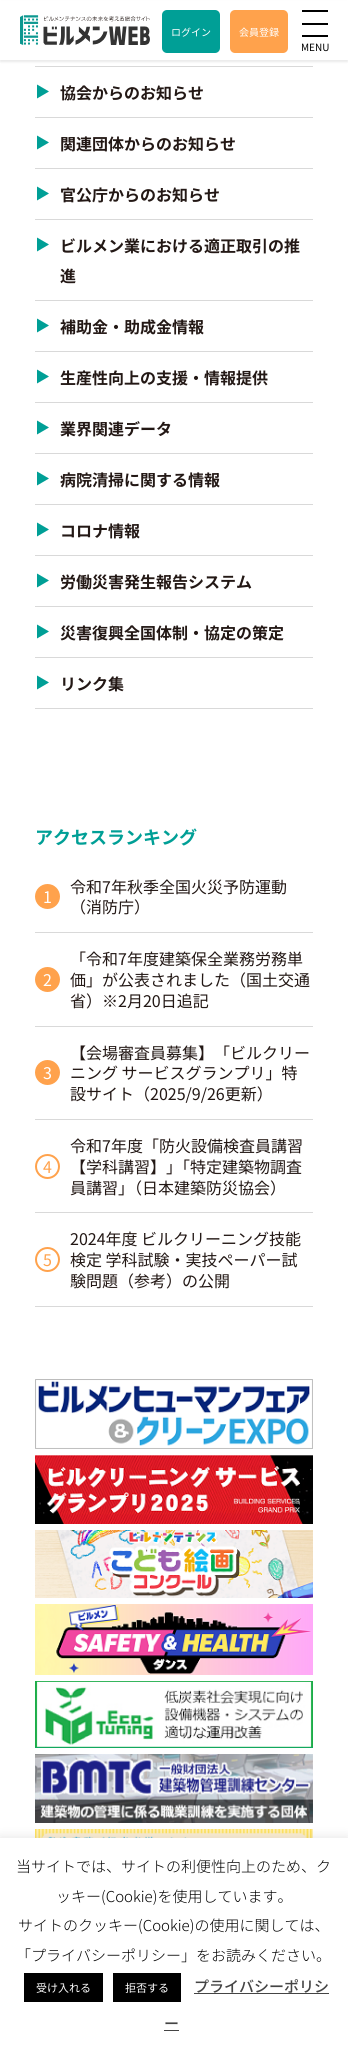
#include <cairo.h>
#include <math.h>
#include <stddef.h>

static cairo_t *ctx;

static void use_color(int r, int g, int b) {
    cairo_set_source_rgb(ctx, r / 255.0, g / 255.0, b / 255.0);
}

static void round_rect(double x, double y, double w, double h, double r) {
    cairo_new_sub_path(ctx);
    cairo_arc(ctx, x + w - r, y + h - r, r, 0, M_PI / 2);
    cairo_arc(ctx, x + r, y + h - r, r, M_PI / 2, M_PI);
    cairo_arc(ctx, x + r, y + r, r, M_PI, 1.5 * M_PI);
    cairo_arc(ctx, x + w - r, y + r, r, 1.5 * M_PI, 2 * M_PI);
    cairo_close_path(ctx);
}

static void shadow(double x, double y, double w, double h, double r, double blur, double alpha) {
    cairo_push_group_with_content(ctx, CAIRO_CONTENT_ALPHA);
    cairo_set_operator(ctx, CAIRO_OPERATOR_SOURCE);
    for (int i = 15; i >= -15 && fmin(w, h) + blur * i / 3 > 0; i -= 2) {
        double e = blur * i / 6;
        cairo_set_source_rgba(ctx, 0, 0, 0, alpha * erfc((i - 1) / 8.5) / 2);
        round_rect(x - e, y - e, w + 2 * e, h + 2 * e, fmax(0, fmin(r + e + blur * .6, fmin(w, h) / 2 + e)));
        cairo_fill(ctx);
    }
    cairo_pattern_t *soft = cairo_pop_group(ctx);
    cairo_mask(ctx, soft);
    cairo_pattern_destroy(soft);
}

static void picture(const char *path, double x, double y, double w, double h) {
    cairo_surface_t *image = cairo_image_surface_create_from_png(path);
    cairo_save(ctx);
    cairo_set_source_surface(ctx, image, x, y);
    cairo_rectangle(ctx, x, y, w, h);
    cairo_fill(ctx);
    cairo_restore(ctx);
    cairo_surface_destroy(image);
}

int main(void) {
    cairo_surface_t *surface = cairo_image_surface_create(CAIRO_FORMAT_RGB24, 348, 2048);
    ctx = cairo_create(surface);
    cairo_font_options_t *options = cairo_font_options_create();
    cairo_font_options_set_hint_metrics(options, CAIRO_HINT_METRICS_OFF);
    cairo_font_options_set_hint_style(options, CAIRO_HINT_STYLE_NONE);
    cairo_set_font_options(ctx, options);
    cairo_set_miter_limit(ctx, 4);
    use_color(255, 255, 255);
    cairo_paint(ctx);
    use_color(0, 0, 0);
    shadow(0, 2, 348, 60, 0, 1, 0.08);
    use_color(255, 255, 255);
    cairo_rectangle(ctx, 0, 1, 348, 59);
    cairo_fill(ctx);
    picture("img1.png", 20, 15, 130, 30);
    use_color(0, 159, 150);
    round_rect(162, 10, 58, 43, 5);
    cairo_fill(ctx);
    cairo_select_font_face(ctx, "Noto Sans JP", CAIRO_FONT_SLANT_NORMAL, CAIRO_FONT_WEIGHT_NORMAL);
    cairo_set_font_size(ctx, 10);
    use_color(255, 255, 255);
    cairo_move_to(ctx, 171, 36);
    cairo_show_text(ctx, "ログイン");
    use_color(255, 162, 76);
    round_rect(230, 10, 58, 43, 5);
    cairo_fill(ctx);
    use_color(255, 255, 255);
    cairo_move_to(ctx, 239, 36);
    cairo_show_text(ctx, "会員登録");
    use_color(0, 0, 0);
    cairo_rectangle(ctx, 302, 10, 26, 2);
    cairo_fill(ctx);
    cairo_rectangle(ctx, 302, 23, 26, 2);
    cairo_fill(ctx);
    cairo_rectangle(ctx, 302, 35, 26, 2);
    cairo_fill(ctx);
    cairo_move_to(ctx, 301, 51);
    cairo_show_text(ctx, "MENU");
    use_color(217, 217, 217);
    cairo_rectangle(ctx, 35, 66, 278, 1);
    cairo_fill(ctx);
    cairo_rectangle(ctx, 35, 117, 278, 1);
    cairo_fill(ctx);
    use_color(0, 159, 150);
    cairo_new_path(ctx);
    cairo_move_to(ctx, 49, 91.5);
    cairo_line_to(ctx, 37, 98.5);
    cairo_line_to(ctx, 37, 84.5);
    cairo_close_path(ctx);
    cairo_fill(ctx);
    cairo_select_font_face(ctx, "Noto Sans JP", CAIRO_FONT_SLANT_NORMAL, CAIRO_FONT_WEIGHT_BOLD);
    cairo_set_font_size(ctx, 16);
    use_color(35, 24, 21);
    cairo_move_to(ctx, 60, 99);
    cairo_show_text(ctx, "協会からのお知らせ");
    use_color(217, 217, 217);
    cairo_rectangle(ctx, 35, 168, 278, 1);
    cairo_fill(ctx);
    use_color(0, 159, 150);
    cairo_new_path(ctx);
    cairo_move_to(ctx, 49, 142.5);
    cairo_line_to(ctx, 37, 149.5);
    cairo_line_to(ctx, 37, 135.5);
    cairo_close_path(ctx);
    cairo_fill(ctx);
    use_color(35, 24, 21);
    cairo_move_to(ctx, 60, 150);
    cairo_show_text(ctx, "関連団体からのお知らせ");
    use_color(217, 217, 217);
    cairo_rectangle(ctx, 35, 219, 278, 1);
    cairo_fill(ctx);
    use_color(0, 159, 150);
    cairo_new_path(ctx);
    cairo_move_to(ctx, 49, 193.5);
    cairo_line_to(ctx, 37, 200.5);
    cairo_line_to(ctx, 37, 186.5);
    cairo_close_path(ctx);
    cairo_fill(ctx);
    use_color(35, 24, 21);
    cairo_move_to(ctx, 60, 201);
    cairo_show_text(ctx, "官公庁からのお知らせ");
    use_color(217, 217, 217);
    cairo_rectangle(ctx, 35, 300, 278, 1);
    cairo_fill(ctx);
    use_color(0, 159, 150);
    cairo_new_path(ctx);
    cairo_move_to(ctx, 49, 244.5);
    cairo_line_to(ctx, 37, 251.5);
    cairo_line_to(ctx, 37, 237.5);
    cairo_close_path(ctx);
    cairo_fill(ctx);
    use_color(35, 24, 21);
    cairo_move_to(ctx, 60, 252);
    cairo_show_text(ctx, "ビルメン業における適正取引の推");
    cairo_move_to(ctx, 60, 282);
    cairo_show_text(ctx, "進");
    use_color(217, 217, 217);
    cairo_rectangle(ctx, 35, 351, 278, 1);
    cairo_fill(ctx);
    use_color(0, 159, 150);
    cairo_new_path(ctx);
    cairo_move_to(ctx, 49, 325.5);
    cairo_line_to(ctx, 37, 332.5);
    cairo_line_to(ctx, 37, 318.5);
    cairo_close_path(ctx);
    cairo_fill(ctx);
    use_color(35, 24, 21);
    cairo_move_to(ctx, 60, 333);
    cairo_show_text(ctx, "補助金・助成金情報");
    use_color(217, 217, 217);
    cairo_rectangle(ctx, 35, 402, 278, 1);
    cairo_fill(ctx);
    use_color(0, 159, 150);
    cairo_new_path(ctx);
    cairo_move_to(ctx, 49, 376.5);
    cairo_line_to(ctx, 37, 383.5);
    cairo_line_to(ctx, 37, 369.5);
    cairo_close_path(ctx);
    cairo_fill(ctx);
    use_color(35, 24, 21);
    cairo_move_to(ctx, 60, 384);
    cairo_show_text(ctx, "生産性向上の支援・情報提供");
    use_color(217, 217, 217);
    cairo_rectangle(ctx, 35, 453, 278, 1);
    cairo_fill(ctx);
    use_color(0, 159, 150);
    cairo_new_path(ctx);
    cairo_move_to(ctx, 49, 427.5);
    cairo_line_to(ctx, 37, 434.5);
    cairo_line_to(ctx, 37, 420.5);
    cairo_close_path(ctx);
    cairo_fill(ctx);
    use_color(35, 24, 21);
    cairo_move_to(ctx, 60, 435);
    cairo_show_text(ctx, "業界関連データ");
    use_color(217, 217, 217);
    cairo_rectangle(ctx, 35, 504, 278, 1);
    cairo_fill(ctx);
    use_color(0, 159, 150);
    cairo_new_path(ctx);
    cairo_move_to(ctx, 49, 478.5);
    cairo_line_to(ctx, 37, 485.5);
    cairo_line_to(ctx, 37, 471.5);
    cairo_close_path(ctx);
    cairo_fill(ctx);
    use_color(35, 24, 21);
    cairo_move_to(ctx, 60, 486);
    cairo_show_text(ctx, "病院清掃に関する情報");
    use_color(217, 217, 217);
    cairo_rectangle(ctx, 35, 555, 278, 1);
    cairo_fill(ctx);
    use_color(0, 159, 150);
    cairo_new_path(ctx);
    cairo_move_to(ctx, 49, 529.5);
    cairo_line_to(ctx, 37, 536.5);
    cairo_line_to(ctx, 37, 522.5);
    cairo_close_path(ctx);
    cairo_fill(ctx);
    use_color(35, 24, 21);
    cairo_move_to(ctx, 60, 537);
    cairo_show_text(ctx, "コロナ情報");
    use_color(217, 217, 217);
    cairo_rectangle(ctx, 35, 606, 278, 1);
    cairo_fill(ctx);
    use_color(0, 159, 150);
    cairo_new_path(ctx);
    cairo_move_to(ctx, 49, 580.5);
    cairo_line_to(ctx, 37, 587.5);
    cairo_line_to(ctx, 37, 573.5);
    cairo_close_path(ctx);
    cairo_fill(ctx);
    use_color(35, 24, 21);
    cairo_move_to(ctx, 60, 588);
    cairo_show_text(ctx, "労働災害発生報告システム");
    use_color(217, 217, 217);
    cairo_rectangle(ctx, 35, 657, 278, 1);
    cairo_fill(ctx);
    use_color(0, 159, 150);
    cairo_new_path(ctx);
    cairo_move_to(ctx, 49, 631.5);
    cairo_line_to(ctx, 37, 638.5);
    cairo_line_to(ctx, 37, 624.5);
    cairo_close_path(ctx);
    cairo_fill(ctx);
    use_color(35, 24, 21);
    cairo_move_to(ctx, 60, 639);
    cairo_show_text(ctx, "災害復興全国体制・協定の策定");
    use_color(217, 217, 217);
    cairo_rectangle(ctx, 35, 708, 278, 1);
    cairo_fill(ctx);
    use_color(0, 159, 150);
    cairo_new_path(ctx);
    cairo_move_to(ctx, 49, 682.5);
    cairo_line_to(ctx, 37, 689.5);
    cairo_line_to(ctx, 37, 675.5);
    cairo_close_path(ctx);
    cairo_fill(ctx);
    use_color(35, 24, 21);
    cairo_move_to(ctx, 60, 690);
    cairo_show_text(ctx, "リンク集");
    cairo_set_font_size(ctx, 18);
    use_color(0, 159, 150);
    cairo_move_to(ctx, 35, 844);
    cairo_show_text(ctx, "アクセスランキング");
    use_color(217, 217, 217);
    cairo_rectangle(ctx, 35, 932, 278, 1);
    cairo_fill(ctx);
    use_color(255, 162, 76);
    cairo_arc(ctx, 47.5, 896.5, 11.5, 0, 2 * M_PI);
    cairo_fill_preserve(ctx);
    cairo_stroke(ctx);
    cairo_select_font_face(ctx, "Noto Sans JP", CAIRO_FONT_SLANT_NORMAL, CAIRO_FONT_WEIGHT_NORMAL);
    cairo_set_font_size(ctx, 16);
    use_color(255, 255, 255);
    cairo_move_to(ctx, 43, 903);
    cairo_show_text(ctx, "1");
    use_color(35, 24, 21);
    cairo_move_to(ctx, 70, 893);
    cairo_show_text(ctx, "令和7年秋季全国火災予防運動");
    cairo_move_to(ctx, 70, 913);
    cairo_show_text(ctx, "（消防庁）");
    use_color(217, 217, 217);
    cairo_rectangle(ctx, 35, 1026, 278, 1);
    cairo_fill(ctx);
    use_color(255, 162, 76);
    cairo_arc(ctx, 47.5, 979.5, 11.5, 0, 2 * M_PI);
    cairo_fill_preserve(ctx);
    cairo_stroke(ctx);
    use_color(255, 255, 255);
    cairo_move_to(ctx, 43, 986);
    cairo_show_text(ctx, "2");
    use_color(35, 24, 21);
    cairo_move_to(ctx, 70, 965);
    cairo_show_text(ctx, "「令和7年度建築保全業務労務単");
    cairo_move_to(ctx, 70, 986);
    cairo_show_text(ctx, "価」が公表されました（国土交通");
    cairo_move_to(ctx, 70, 1007);
    cairo_show_text(ctx, "省）※2月20日追記");
    use_color(217, 217, 217);
    cairo_rectangle(ctx, 35, 1119, 278, 1);
    cairo_fill(ctx);
    use_color(255, 162, 76);
    cairo_arc(ctx, 47.5, 1072.5, 11.5, 0, 2 * M_PI);
    cairo_fill_preserve(ctx);
    cairo_stroke(ctx);
    use_color(255, 255, 255);
    cairo_move_to(ctx, 43, 1079);
    cairo_show_text(ctx, "3");
    use_color(35, 24, 21);
    cairo_move_to(ctx, 70, 1059);
    cairo_show_text(ctx, "【会場審査員募集】「ビルクリー");
    cairo_move_to(ctx, 70, 1079);
    cairo_show_text(ctx, "ニング サービスグランプリ」特");
    cairo_move_to(ctx, 70, 1100);
    cairo_show_text(ctx, "設サイト（2025/9/26更新）");
    use_color(217, 217, 217);
    cairo_rectangle(ctx, 35, 1212, 278, 1);
    cairo_fill(ctx);
    cairo_arc(ctx, 47.5, 1166.5, 11.5, 0, 2 * M_PI);
    use_color(255, 162, 76);
    cairo_stroke(ctx);
    cairo_move_to(ctx, 43, 1173);
    cairo_show_text(ctx, "4");
    use_color(35, 24, 21);
    cairo_move_to(ctx, 70, 1152);
    cairo_show_text(ctx, "令和7年度「防火設備検査員講習");
    cairo_move_to(ctx, 70, 1173);
    cairo_show_text(ctx, "【学科講習】」｢特定建築物調査");
    cairo_move_to(ctx, 70, 1194);
    cairo_show_text(ctx, "員講習｣（日本建築防災協会）");
    use_color(217, 217, 217);
    cairo_rectangle(ctx, 35, 1306, 278, 1);
    cairo_fill(ctx);
    cairo_arc(ctx, 47.5, 1259.5, 11.5, 0, 2 * M_PI);
    use_color(255, 162, 76);
    cairo_stroke(ctx);
    cairo_move_to(ctx, 43, 1266);
    cairo_show_text(ctx, "5");
    use_color(35, 24, 21);
    cairo_move_to(ctx, 70, 1245);
    cairo_show_text(ctx, "2024年度 ビルクリーニング技能");
    cairo_move_to(ctx, 70, 1266);
    cairo_show_text(ctx, "検定 学科試験・実技ペーパー試");
    cairo_move_to(ctx, 70, 1287);
    cairo_show_text(ctx, "験問題（参考）の公開");
    picture("img2.png", 35, 1379, 278, 70);
    picture("img3.png", 35, 1455, 278, 69);
    picture("img4.png", 35, 1530, 278, 68);
    picture("img5.png", 35, 1604, 278, 71);
    use_color(0, 159, 150);
    cairo_rectangle(ctx, 35, 1747, 278, 1);
    cairo_fill(ctx);
    picture("img6.png", 35, 1681, 278, 67);
    picture("img7.png", 35, 1754, 278, 69);
    picture("img8.png", 35, 1829, 278, 9);
    use_color(172, 171, 171);
    shadow(0, 1837, 348, 210, 0, 5, 0.3);
    use_color(255, 255, 255);
    cairo_rectangle(ctx, 0, 1838, 348, 210);
    cairo_fill(ctx);
    cairo_select_font_face(ctx, "Noto Sans JP Light", CAIRO_FONT_SLANT_NORMAL, CAIRO_FONT_WEIGHT_NORMAL);
    cairo_set_font_size(ctx, 15);
    use_color(0, 0, 0);
    cairo_move_to(ctx, 16, 1872);
    cairo_show_text(ctx, "当サイトでは、サイトの利便性向上のため、ク");
    cairo_move_to(ctx, 56, 1902);
    cairo_show_text(ctx, "ッキー(Cookie)を使用しています。");
    cairo_move_to(ctx, 18, 1931);
    cairo_show_text(ctx, "サイトのクッキー(Cookie)の使用に関しては、");
    cairo_move_to(ctx, 16, 1961);
    cairo_show_text(ctx, "「プライバシーポリシー」をお読みください。");
    cairo_rectangle(ctx, 24, 1973, 79, 29);
    cairo_fill(ctx);
    cairo_select_font_face(ctx, "Noto Sans JP", CAIRO_FONT_SLANT_NORMAL, CAIRO_FONT_WEIGHT_NORMAL);
    cairo_set_font_size(ctx, 11);
    use_color(255, 255, 255);
    cairo_move_to(ctx, 36, 1992);
    cairo_show_text(ctx, "受け入れる");
    use_color(0, 0, 0);
    cairo_rectangle(ctx, 113, 1973, 68, 29);
    cairo_fill(ctx);
    use_color(255, 255, 255);
    cairo_move_to(ctx, 125, 1992);
    cairo_show_text(ctx, "拒否する");
    cairo_select_font_face(ctx, "Noto Sans JP Medium", CAIRO_FONT_SLANT_NORMAL, CAIRO_FONT_WEIGHT_NORMAL);
    cairo_set_font_size(ctx, 15);
    use_color(68, 68, 68);
    cairo_move_to(ctx, 194, 1992);
    cairo_show_text(ctx, "プライバシーポリシ");
    cairo_rectangle(ctx, 194, 1993, 135, 1);
    cairo_fill(ctx);
    cairo_move_to(ctx, 164, 2029);
    cairo_show_text(ctx, "ー");
    cairo_rectangle(ctx, 164, 2030, 15, 1);
    cairo_fill(ctx);
    cairo_surface_write_to_png(surface, "result.png");
    cairo_font_options_destroy(options);
    cairo_destroy(ctx);
    cairo_surface_destroy(surface);
    return 0;
}
